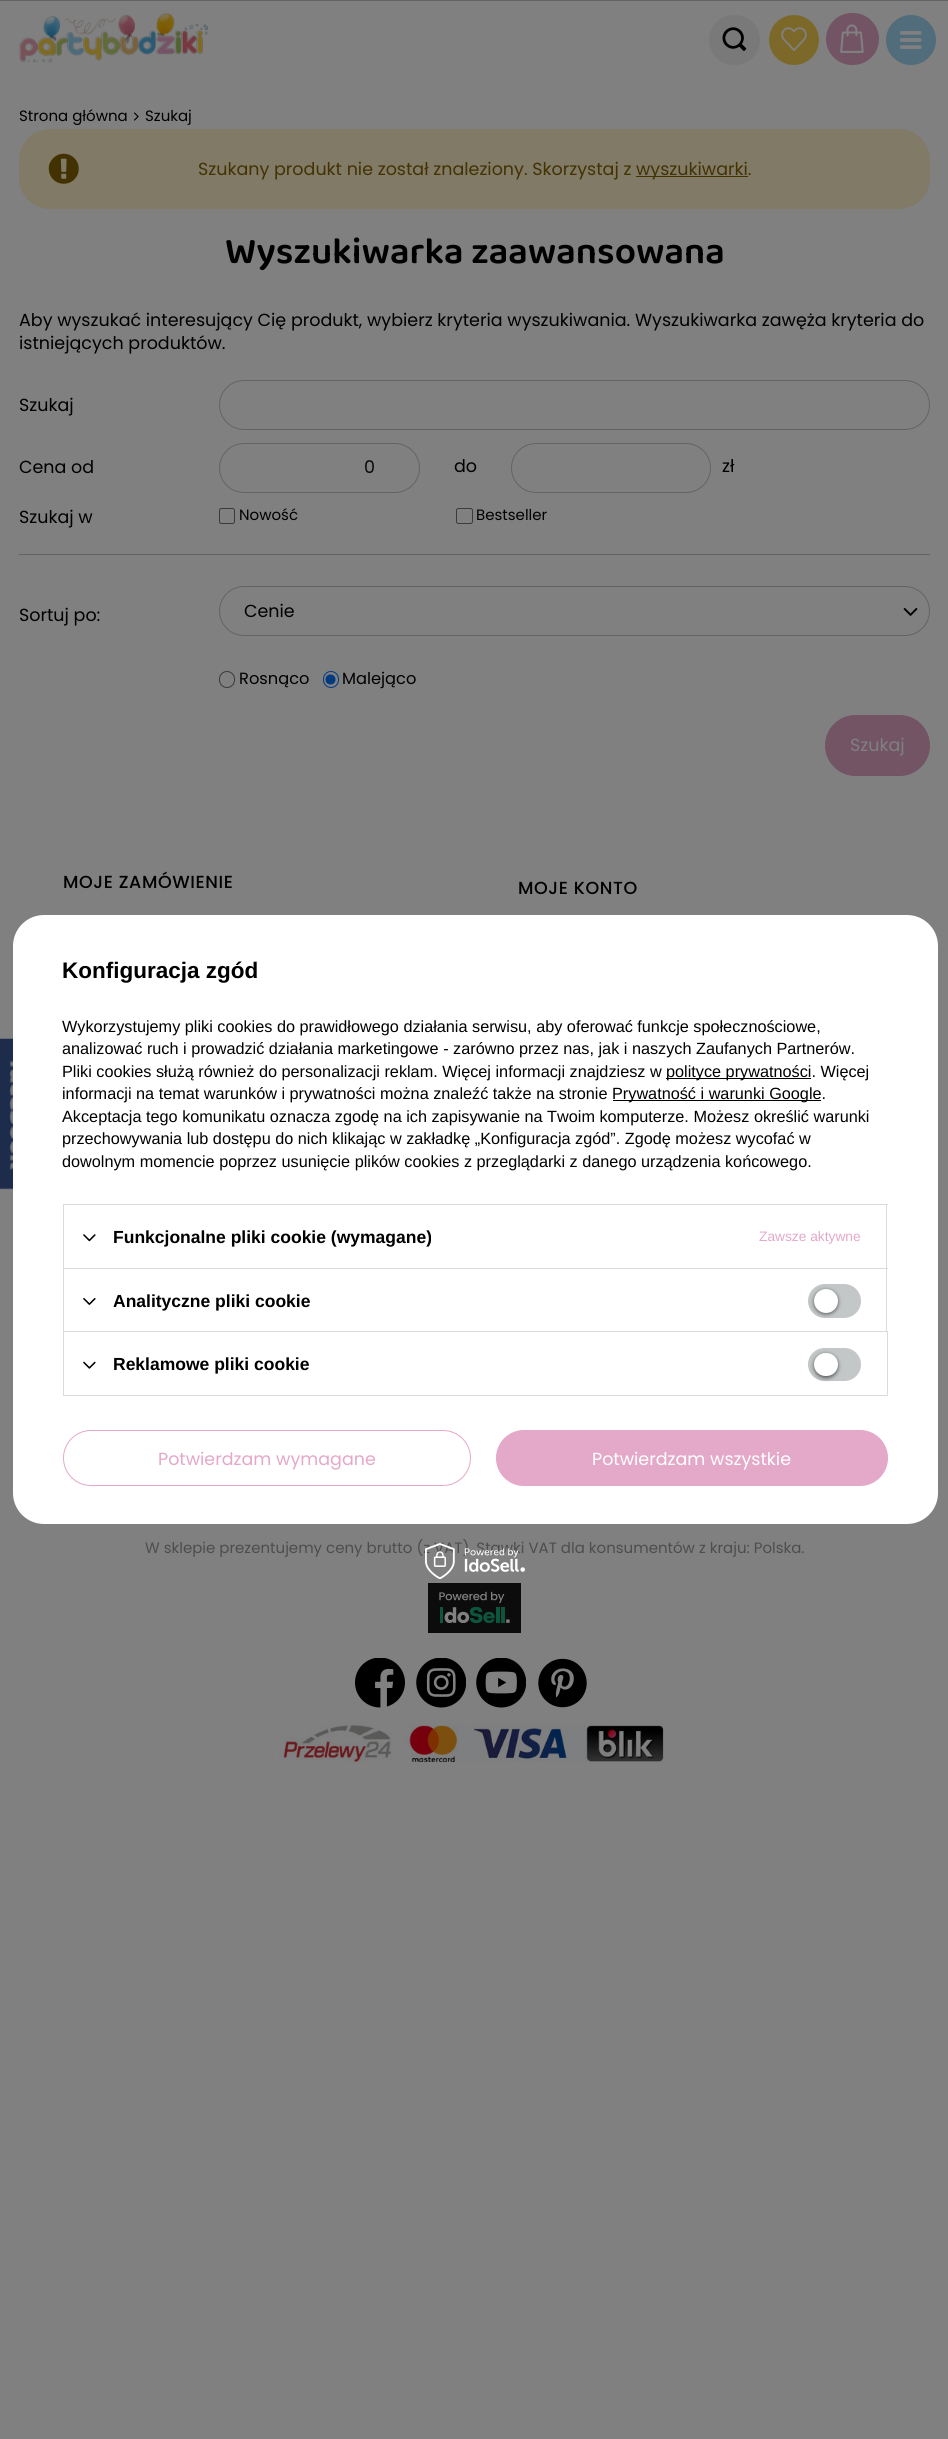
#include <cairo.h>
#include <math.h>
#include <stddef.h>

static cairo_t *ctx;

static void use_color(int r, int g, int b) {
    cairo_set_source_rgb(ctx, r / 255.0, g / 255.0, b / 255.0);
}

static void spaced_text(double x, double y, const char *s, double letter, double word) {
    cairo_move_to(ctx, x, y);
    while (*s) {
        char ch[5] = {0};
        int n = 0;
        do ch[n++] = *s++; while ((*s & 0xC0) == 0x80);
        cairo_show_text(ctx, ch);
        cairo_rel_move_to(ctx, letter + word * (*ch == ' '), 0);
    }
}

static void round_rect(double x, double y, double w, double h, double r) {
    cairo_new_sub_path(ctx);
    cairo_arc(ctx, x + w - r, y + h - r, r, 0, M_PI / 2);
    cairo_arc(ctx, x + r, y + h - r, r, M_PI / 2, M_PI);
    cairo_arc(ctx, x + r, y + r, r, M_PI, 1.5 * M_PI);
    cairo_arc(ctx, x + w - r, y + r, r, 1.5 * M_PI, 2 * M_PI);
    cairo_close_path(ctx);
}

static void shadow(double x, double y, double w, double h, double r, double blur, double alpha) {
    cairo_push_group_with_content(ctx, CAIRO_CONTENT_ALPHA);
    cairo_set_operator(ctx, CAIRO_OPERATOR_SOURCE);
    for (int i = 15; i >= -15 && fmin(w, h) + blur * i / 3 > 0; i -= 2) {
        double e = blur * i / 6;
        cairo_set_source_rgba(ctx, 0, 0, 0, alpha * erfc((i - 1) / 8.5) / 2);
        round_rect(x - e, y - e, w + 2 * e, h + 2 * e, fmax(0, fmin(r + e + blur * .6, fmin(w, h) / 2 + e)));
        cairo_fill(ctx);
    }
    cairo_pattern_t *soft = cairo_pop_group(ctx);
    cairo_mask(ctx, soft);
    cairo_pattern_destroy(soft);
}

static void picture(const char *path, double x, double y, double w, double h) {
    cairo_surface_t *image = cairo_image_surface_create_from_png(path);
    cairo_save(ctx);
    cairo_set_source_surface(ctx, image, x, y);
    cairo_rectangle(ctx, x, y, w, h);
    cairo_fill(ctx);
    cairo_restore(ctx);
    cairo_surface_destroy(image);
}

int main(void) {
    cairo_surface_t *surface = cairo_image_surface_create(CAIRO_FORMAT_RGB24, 948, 2439);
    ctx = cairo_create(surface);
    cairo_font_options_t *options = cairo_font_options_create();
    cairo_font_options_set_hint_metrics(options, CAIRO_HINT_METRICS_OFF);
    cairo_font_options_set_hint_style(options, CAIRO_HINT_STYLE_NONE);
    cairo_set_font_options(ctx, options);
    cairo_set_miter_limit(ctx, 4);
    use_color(128, 128, 128);
    cairo_paint(ctx);
    use_color(98, 100, 100);
    cairo_rectangle(ctx, 0, 0, 948, 1);
    cairo_fill(ctx);
    picture("img1.png", 19, 13, 190, 50);
    use_color(121, 121, 121);
    round_rect(709, 15, 51, 50, 25);
    cairo_fill(ctx);
    picture("img2.png", 722, 27, 25, 24);
    use_color(124, 105, 41);
    cairo_arc(ctx, 794, 40, 25, 0, 2 * M_PI);
    cairo_fill(ctx);
    picture("img3.png", 781, 27, 26, 24);
    use_color(114, 84, 101);
    round_rect(826, 13, 53, 52, 26);
    cairo_fill(ctx);
    picture("img4.png", 840, 24, 24, 29);
    use_color(81, 108, 123);
    cairo_arc(ctx, 911, 40, 25, 0, 2 * M_PI);
    cairo_fill(ctx);
    picture("img5.png", 900, 31, 22, 18);
    cairo_select_font_face(ctx, "Poppins", CAIRO_FONT_SLANT_NORMAL, CAIRO_FONT_WEIGHT_NORMAL);
    cairo_set_font_size(ctx, 15);
    use_color(0, 0, 0);
    cairo_move_to(ctx, 19, 121);
    cairo_show_text(ctx, "Strona główna");
    picture("img6.png", 133, 112, 6, 9);
    cairo_move_to(ctx, 145, 121);
    cairo_show_text(ctx, "Szukaj");
    use_color(128, 122, 103);
    round_rect(19, 129, 911, 80, 31);
    cairo_fill(ctx);
    picture("img7.png", 48, 153, 31, 31);
    cairo_set_font_size(ctx, 17.5);
    use_color(67, 50, 2);
    cairo_move_to(ctx, 198, 175);
    cairo_show_text(ctx, "Szukany produkt nie został znaleziony. Skorzystaj z");
    cairo_rectangle(ctx, 636, 176, 112, 1);
    cairo_fill(ctx);
    cairo_move_to(ctx, 636, 175);
    cairo_show_text(ctx, "wyszukiwarki.");
    cairo_select_font_face(ctx, "Baloo 2 SemiBold", CAIRO_FONT_SLANT_NORMAL, CAIRO_FONT_WEIGHT_NORMAL);
    cairo_set_font_size(ctx, 37.5);
    use_color(0, 0, 0);
    cairo_move_to(ctx, 225, 263);
    cairo_show_text(ctx, "Wyszukiwarka zaawansowana");
    cairo_select_font_face(ctx, "Poppins", CAIRO_FONT_SLANT_NORMAL, CAIRO_FONT_WEIGHT_NORMAL);
    cairo_set_font_size(ctx, 17.5);
    cairo_move_to(ctx, 19, 326);
    cairo_show_text(ctx, "Aby wyszukać interesujący Cię produkt, wybierz kryteria wyszukiwania. Wyszukiwarka zawęża kryteria do");
    cairo_move_to(ctx, 19, 349);
    cairo_show_text(ctx, "istniejących produktów.");
    use_color(98, 100, 100);
    cairo_rectangle(ctx, 19, 554, 911, 1);
    cairo_fill(ctx);
    use_color(0, 0, 0);
    cairo_move_to(ctx, 19, 411);
    cairo_show_text(ctx, "Szukaj");
    round_rect(219.5, 380.5, 710, 49, 24.5);
    use_color(98, 100, 100);
    cairo_set_line_width(ctx, 1);
    cairo_stroke(ctx);
    use_color(0, 0, 0);
    cairo_move_to(ctx, 19, 473);
    cairo_show_text(ctx, "Cena od");
    round_rect(219.5, 443.5, 200, 49, 24.5);
    use_color(98, 100, 100);
    cairo_stroke(ctx);
    use_color(7, 9, 11);
    cairo_move_to(ctx, 364, 473);
    cairo_show_text(ctx, "0");
    use_color(0, 0, 0);
    cairo_move_to(ctx, 454, 472);
    cairo_show_text(ctx, "do");
    round_rect(511.5, 443.5, 199, 49, 24.5);
    use_color(98, 100, 100);
    cairo_stroke(ctx);
    use_color(0, 0, 0);
    cairo_move_to(ctx, 722, 472);
    cairo_show_text(ctx, "zł");
    cairo_move_to(ctx, 19, 523);
    cairo_show_text(ctx, "Szukaj w");
    round_rect(219.5, 508.5, 15, 15, 2);
    use_color(59, 59, 59);
    cairo_stroke(ctx);
    cairo_set_font_size(ctx, 15);
    use_color(0, 0, 0);
    cairo_move_to(ctx, 239, 520);
    cairo_show_text(ctx, "Nowość");
    round_rect(456.5, 508.5, 16, 15, 2);
    use_color(59, 59, 59);
    cairo_stroke(ctx);
    use_color(0, 0, 0);
    cairo_move_to(ctx, 476, 520);
    cairo_show_text(ctx, "Bestseller");
    cairo_set_font_size(ctx, 17.5);
    cairo_move_to(ctx, 19, 621);
    cairo_show_text(ctx, "Sortuj po:");
    round_rect(219.5, 586.5, 710, 49, 24.5);
    use_color(98, 100, 100);
    cairo_stroke(ctx);
    use_color(0, 0, 0);
    cairo_move_to(ctx, 244, 617);
    cairo_show_text(ctx, "Cenie");
    picture("img8.png", 903, 607, 15, 9);
    round_rect(219.5, 671.5, 15, 16, 7.5);
    use_color(59, 59, 59);
    cairo_stroke(ctx);
    cairo_set_font_size(ctx, 16.25);
    use_color(0, 0, 0);
    cairo_move_to(ctx, 239, 684);
    cairo_show_text(ctx, "Rosnąco");
    round_rect(323.5, 671.5, 15, 16, 7.5);
    use_color(0, 59, 128);
    cairo_stroke(ctx);
    cairo_arc(ctx, 330.5, 679.5, 5, 0, 2 * M_PI);
    cairo_fill(ctx);
    use_color(0, 0, 0);
    cairo_move_to(ctx, 342, 684);
    cairo_show_text(ctx, "Malejąco");
    use_color(114, 84, 101);
    round_rect(825.5, 715.5, 104, 60, 30);
    cairo_fill_preserve(ctx);
    cairo_stroke(ctx);
    cairo_set_font_size(ctx, 17.5);
    use_color(128, 128, 128);
    cairo_move_to(ctx, 850, 751);
    cairo_show_text(ctx, "Szukaj");
    cairo_select_font_face(ctx, "Poppins Medium", CAIRO_FONT_SLANT_NORMAL, CAIRO_FONT_WEIGHT_NORMAL);
    use_color(0, 0, 0);
    spaced_text(63, 888, "MOJE ZAMÓWIENIE", 0.6, 0);
    spaced_text(518, 894, "MOJE KONTO", 0.6, 0);
    cairo_select_font_face(ctx, "Poppins", CAIRO_FONT_SLANT_NORMAL, CAIRO_FONT_WEIGHT_NORMAL);
    cairo_set_font_size(ctx, 15);
    use_color(77, 77, 77);
    cairo_move_to(ctx, 145, 1553);
    cairo_show_text(ctx, "W sklepie prezentujemy ceny brutto (z VAT). Stawki VAT dla konsumentów z kraju: Polska.");
    picture("img9.png", 428, 1583, 93, 50);
    picture("img10.png", 355, 1658, 50, 50);
    picture("img11.png", 416, 1658, 50, 50);
    picture("img12.png", 476, 1658, 50, 50);
    picture("img13.png", 538, 1658, 49, 50);
    picture("img14.png", 279, 1725, 385, 37);
    picture("img15.png", 0, 1038, 13, 152);
    use_color(255, 255, 255);
    round_rect(13, 915, 925, 609, 31);
    cairo_fill(ctx);
    cairo_select_font_face(ctx, "Liberation Sans", CAIRO_FONT_SLANT_NORMAL, CAIRO_FONT_WEIGHT_BOLD);
    cairo_set_font_size(ctx, 22.5);
    use_color(0, 0, 0);
    cairo_move_to(ctx, 62, 978);
    cairo_show_text(ctx, "Konfiguracja zgód");
    cairo_select_font_face(ctx, "Liberation Sans", CAIRO_FONT_SLANT_NORMAL, CAIRO_FONT_WEIGHT_NORMAL);
    cairo_set_font_size(ctx, 16.25);
    cairo_move_to(ctx, 62, 1032);
    cairo_show_text(ctx, "Wykorzystujemy pliki cookies do prawidłowego działania serwisu, aby oferować funkcje społecznościowe,");
    cairo_move_to(ctx, 62, 1054);
    cairo_show_text(ctx, "analizować ruch i prowadzić działania marketingowe - zarówno przez nas, jak i naszych Zaufanych Partnerów.");
    cairo_move_to(ctx, 62, 1077);
    cairo_show_text(ctx, "Pliki cookies służą również do personalizacji reklam. Więcej informacji znajdziesz w");
    cairo_rectangle(ctx, 666, 1078, 145, 1);
    cairo_fill(ctx);
    cairo_move_to(ctx, 666, 1077);
    cairo_show_text(ctx, "polityce prywatności. Więcej");
    cairo_move_to(ctx, 62, 1099);
    cairo_show_text(ctx, "informacji na temat warunków i prywatności można znaleźć także na stronie");
    cairo_rectangle(ctx, 613, 1100, 208, 1);
    cairo_fill(ctx);
    cairo_move_to(ctx, 612, 1099);
    cairo_show_text(ctx, "Prywatność i warunki Google.");
    cairo_move_to(ctx, 62, 1122);
    cairo_show_text(ctx, "Akceptacja tego komunikatu oznacza zgodę na ich zapisywanie na Twoim komputerze. Możesz określić warunki");
    cairo_move_to(ctx, 62, 1144);
    cairo_show_text(ctx, "przechowywania lub dostępu do nich klikając w zakładkę „Konfiguracja zgód”. Zgodę możesz wycofać w");
    cairo_move_to(ctx, 62, 1167);
    cairo_show_text(ctx, "dowolnym momencie poprzez usunięcie plików cookies z przeglądarki z danego urządzenia końcowego.");
    use_color(219, 219, 219);
    cairo_rectangle(ctx, 63, 1204, 825, 1);
    cairo_fill(ctx);
    cairo_rectangle(ctx, 886, 1204, 1, 64);
    cairo_fill(ctx);
    cairo_rectangle(ctx, 63, 1204, 1, 64);
    cairo_fill(ctx);
    picture("img16.png", 83, 1234, 13, 8);
    cairo_select_font_face(ctx, "Liberation Sans", CAIRO_FONT_SLANT_NORMAL, CAIRO_FONT_WEIGHT_BOLD);
    cairo_set_font_size(ctx, 17.5);
    use_color(0, 0, 0);
    cairo_move_to(ctx, 113, 1243);
    cairo_show_text(ctx, "Funkcjonalne pliki cookie (wymagane)");
    cairo_select_font_face(ctx, "Liberation Sans", CAIRO_FONT_SLANT_NORMAL, CAIRO_FONT_WEIGHT_NORMAL);
    cairo_set_font_size(ctx, 13.75);
    use_color(228, 168, 201);
    cairo_move_to(ctx, 759, 1241);
    cairo_show_text(ctx, "Zawsze aktywne");
    use_color(219, 219, 219);
    cairo_rectangle(ctx, 63, 1268, 825, 1);
    cairo_fill(ctx);
    cairo_rectangle(ctx, 886, 1268, 1, 63);
    cairo_fill(ctx);
    cairo_rectangle(ctx, 63, 1268, 1, 63);
    cairo_fill(ctx);
    picture("img17.png", 83, 1298, 13, 7);
    cairo_select_font_face(ctx, "Liberation Sans", CAIRO_FONT_SLANT_NORMAL, CAIRO_FONT_WEIGHT_BOLD);
    cairo_set_font_size(ctx, 17.5);
    use_color(0, 0, 0);
    cairo_move_to(ctx, 113, 1307);
    cairo_show_text(ctx, "Analityczne pliki cookie");
    use_color(195, 199, 200);
    round_rect(808, 1284, 53, 34, 17);
    cairo_fill(ctx);
    use_color(0, 0, 0);
    shadow(814, 1290, 24, 24, 12, 2, 0.56);
    use_color(255, 255, 255);
    cairo_arc(ctx, 826, 1301, 12, 0, 2 * M_PI);
    cairo_fill(ctx);
    cairo_rectangle(ctx, 63.5, 1331.5, 824, 64);
    use_color(219, 219, 219);
    cairo_stroke(ctx);
    picture("img18.png", 83, 1361, 13, 8);
    use_color(0, 0, 0);
    cairo_move_to(ctx, 113, 1370);
    cairo_show_text(ctx, "Reklamowe pliki cookie");
    use_color(195, 199, 200);
    round_rect(808, 1348, 53, 33, 16.5);
    cairo_fill(ctx);
    use_color(0, 0, 0);
    shadow(814, 1354, 24, 24, 12, 2, 0.56);
    use_color(255, 255, 255);
    round_rect(814, 1353, 24, 23, 11.5);
    cairo_fill(ctx);
    round_rect(63.5, 1430.5, 407, 55, 27.5);
    use_color(228, 168, 201);
    cairo_stroke(ctx);
    cairo_select_font_face(ctx, "Poppins", CAIRO_FONT_SLANT_NORMAL, CAIRO_FONT_WEIGHT_NORMAL);
    cairo_move_to(ctx, 158, 1465);
    cairo_show_text(ctx, "Potwierdzam wymagane");
    round_rect(496.5, 1430.5, 391, 55, 27.5);
    cairo_fill_preserve(ctx);
    cairo_stroke(ctx);
    use_color(255, 255, 255);
    cairo_move_to(ctx, 592, 1465);
    cairo_show_text(ctx, "Potwierdzam wszystkie");
    picture("img19.png", 425, 1543, 100, 36);
    cairo_surface_write_to_png(surface, "result.png");
    cairo_font_options_destroy(options);
    cairo_destroy(ctx);
    cairo_surface_destroy(surface);
    return 0;
}
